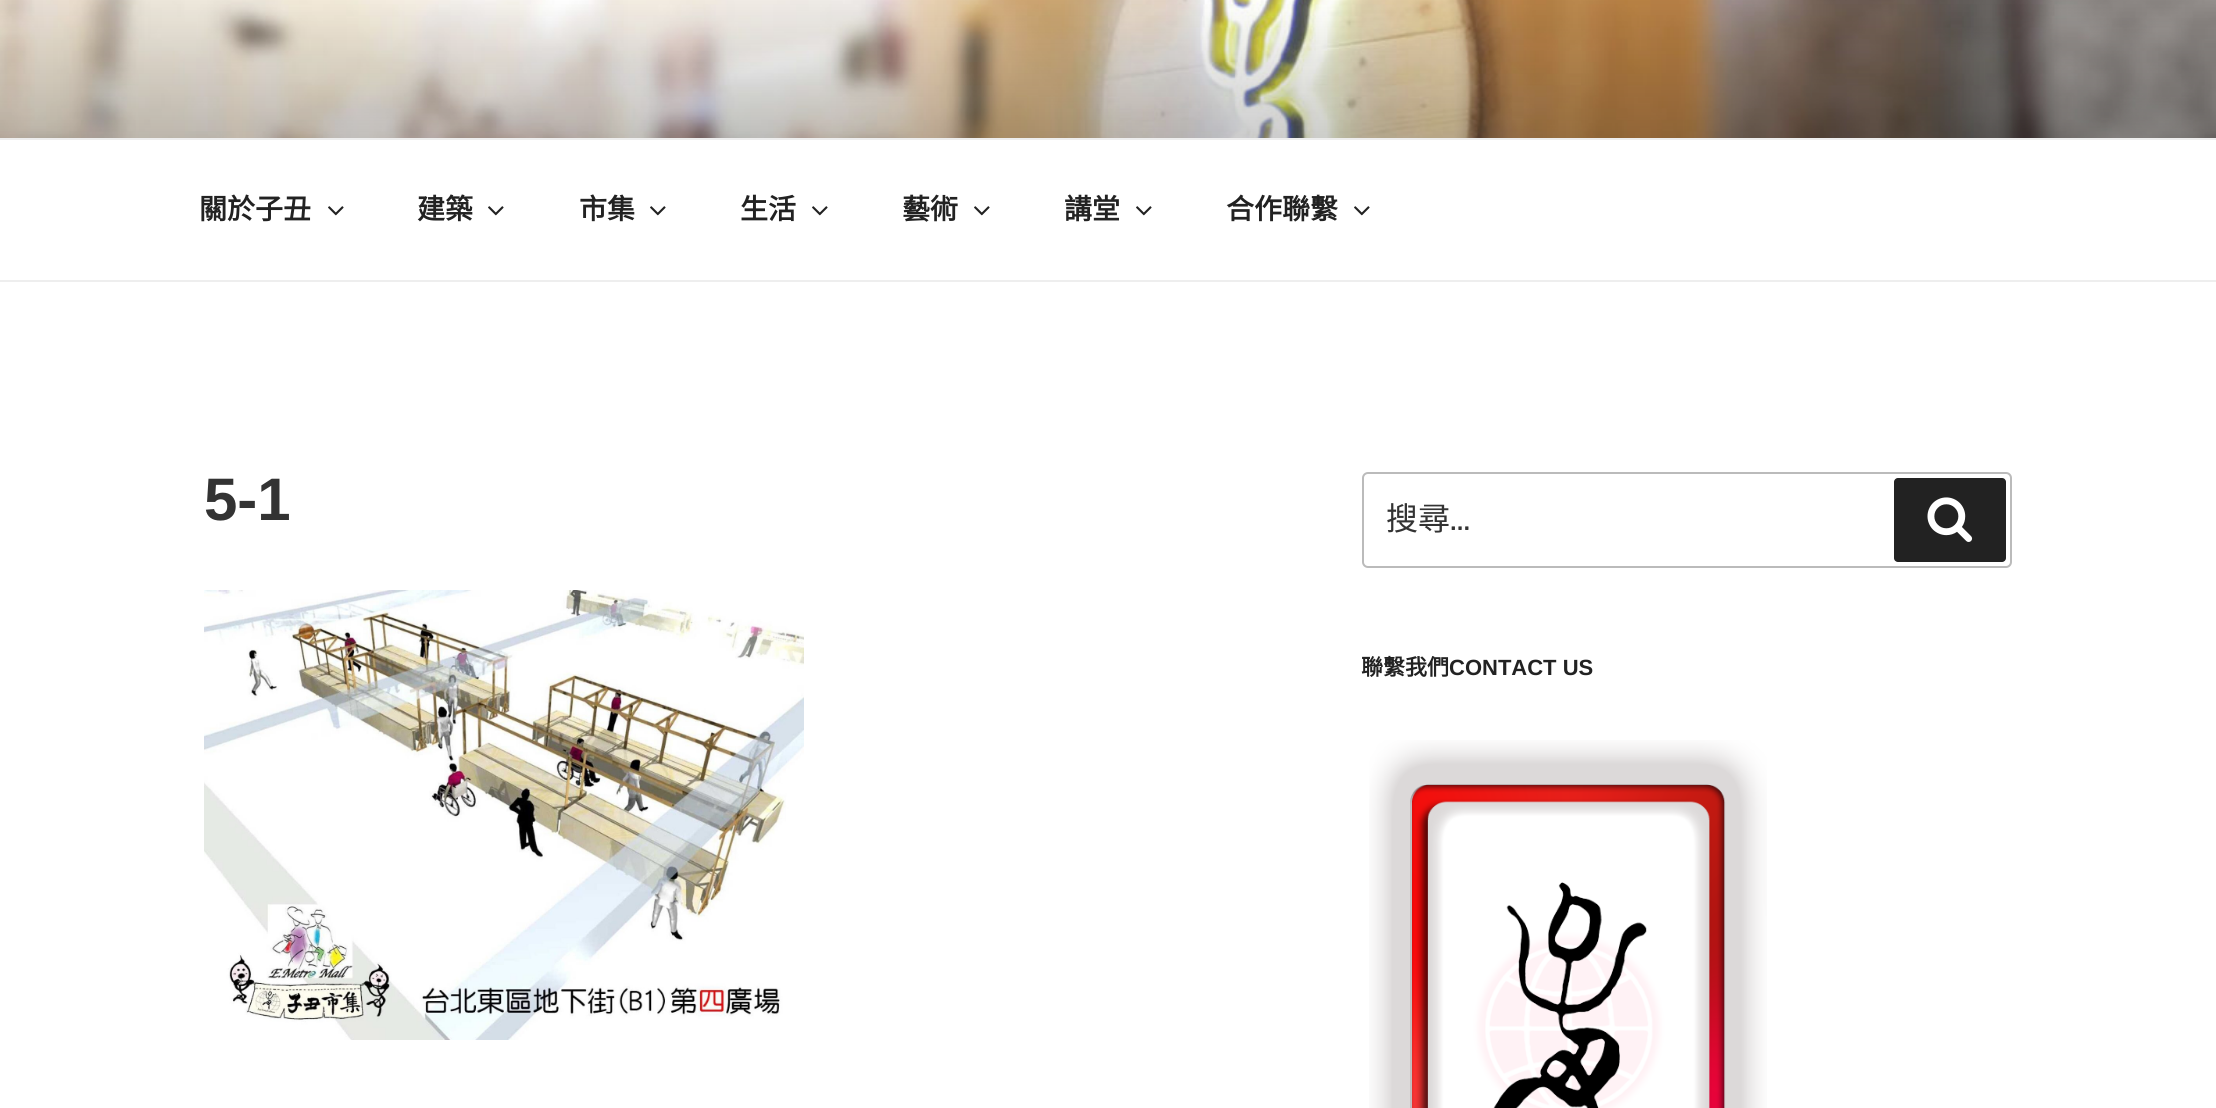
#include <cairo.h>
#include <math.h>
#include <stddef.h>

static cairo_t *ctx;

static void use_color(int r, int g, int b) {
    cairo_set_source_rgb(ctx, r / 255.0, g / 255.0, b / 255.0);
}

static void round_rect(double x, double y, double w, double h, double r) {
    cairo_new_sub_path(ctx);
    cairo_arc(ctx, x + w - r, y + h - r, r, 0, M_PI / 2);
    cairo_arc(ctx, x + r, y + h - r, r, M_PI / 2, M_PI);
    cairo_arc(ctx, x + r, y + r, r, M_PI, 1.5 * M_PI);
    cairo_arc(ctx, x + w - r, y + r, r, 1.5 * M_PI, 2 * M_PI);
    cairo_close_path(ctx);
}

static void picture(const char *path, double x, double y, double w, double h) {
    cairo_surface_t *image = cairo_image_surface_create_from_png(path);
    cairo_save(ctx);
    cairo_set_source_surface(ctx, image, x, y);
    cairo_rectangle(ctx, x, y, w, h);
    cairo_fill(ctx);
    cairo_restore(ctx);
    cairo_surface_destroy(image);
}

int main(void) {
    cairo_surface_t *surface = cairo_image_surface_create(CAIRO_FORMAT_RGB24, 2216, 1108);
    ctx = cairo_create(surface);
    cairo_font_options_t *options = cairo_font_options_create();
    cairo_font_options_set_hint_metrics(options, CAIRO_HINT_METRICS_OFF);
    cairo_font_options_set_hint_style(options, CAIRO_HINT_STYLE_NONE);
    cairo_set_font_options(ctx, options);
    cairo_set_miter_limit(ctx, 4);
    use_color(255, 255, 255);
    cairo_paint(ctx);
    picture("img1.png", 0, 0, 2216, 138);
    use_color(238, 238, 238);
    cairo_rectangle(ctx, 0, 138, 2216, 2);
    cairo_fill(ctx);
    cairo_rectangle(ctx, 0, 280, 2216, 2);
    cairo_fill(ctx);
    cairo_select_font_face(ctx, "Noto Sans CJK TC", CAIRO_FONT_SLANT_NORMAL, CAIRO_FONT_WEIGHT_BOLD);
    cairo_set_font_size(ctx, 28);
    use_color(34, 34, 34);
    cairo_move_to(ctx, 199, 219);
    cairo_show_text(ctx, "關於子丑");
    picture("img2.png", 328, 206, 16, 10);
    cairo_move_to(ctx, 417, 219);
    cairo_show_text(ctx, "建築");
    picture("img2.png", 488, 206, 16, 10);
    cairo_move_to(ctx, 579, 219);
    cairo_show_text(ctx, "市集");
    picture("img2.png", 650, 206, 16, 10);
    cairo_move_to(ctx, 740, 219);
    cairo_show_text(ctx, "生活");
    picture("img2.png", 812, 206, 16, 10);
    cairo_move_to(ctx, 902, 219);
    cairo_show_text(ctx, "藝術");
    picture("img2.png", 974, 206, 16, 10);
    cairo_move_to(ctx, 1064, 219);
    cairo_show_text(ctx, "講堂");
    picture("img2.png", 1136, 206, 16, 10);
    cairo_move_to(ctx, 1226, 219);
    cairo_show_text(ctx, "合作聯繫");
    picture("img2.png", 1354, 206, 16, 10);
    cairo_select_font_face(ctx, "Liberation Sans", CAIRO_FONT_SLANT_NORMAL, CAIRO_FONT_WEIGHT_BOLD);
    cairo_set_font_size(ctx, 60);
    use_color(51, 51, 51);
    cairo_move_to(ctx, 204, 520);
    cairo_show_text(ctx, "5-1");
    picture("img3.png", 204, 590, 600, 450);
    round_rect(1363, 473, 648, 94, 5);
    use_color(187, 187, 187);
    cairo_stroke(ctx);
    cairo_select_font_face(ctx, "Noto Sans CJK TC", CAIRO_FONT_SLANT_NORMAL, CAIRO_FONT_WEIGHT_NORMAL);
    cairo_set_font_size(ctx, 32);
    use_color(51, 51, 51);
    cairo_move_to(ctx, 1386, 530);
    cairo_show_text(ctx, "搜尋");
    cairo_select_font_face(ctx, "Libre Franklin Thin", CAIRO_FONT_SLANT_NORMAL, CAIRO_FONT_WEIGHT_NORMAL);
    cairo_move_to(ctx, 1450, 530);
    cairo_show_text(ctx, "...");
    use_color(34, 34, 34);
    round_rect(1894, 478, 112, 84, 4);
    cairo_fill(ctx);
    picture("img4.png", 1927, 497, 46, 45);
    cairo_select_font_face(ctx, "Noto Sans CJK TC", CAIRO_FONT_SLANT_NORMAL, CAIRO_FONT_WEIGHT_BOLD);
    cairo_set_font_size(ctx, 22);
    cairo_move_to(ctx, 1361, 675);
    cairo_show_text(ctx, "聯繫我們");
    cairo_select_font_face(ctx, "Liberation Sans", CAIRO_FONT_SLANT_NORMAL, CAIRO_FONT_WEIGHT_BOLD);
    cairo_move_to(ctx, 1449, 675);
    cairo_show_text(ctx, "CONTACT US");
    picture("img5.png", 1369, 740, 398, 368);
    cairo_surface_write_to_png(surface, "result.png");
    cairo_font_options_destroy(options);
    cairo_destroy(ctx);
    cairo_surface_destroy(surface);
    return 0;
}
